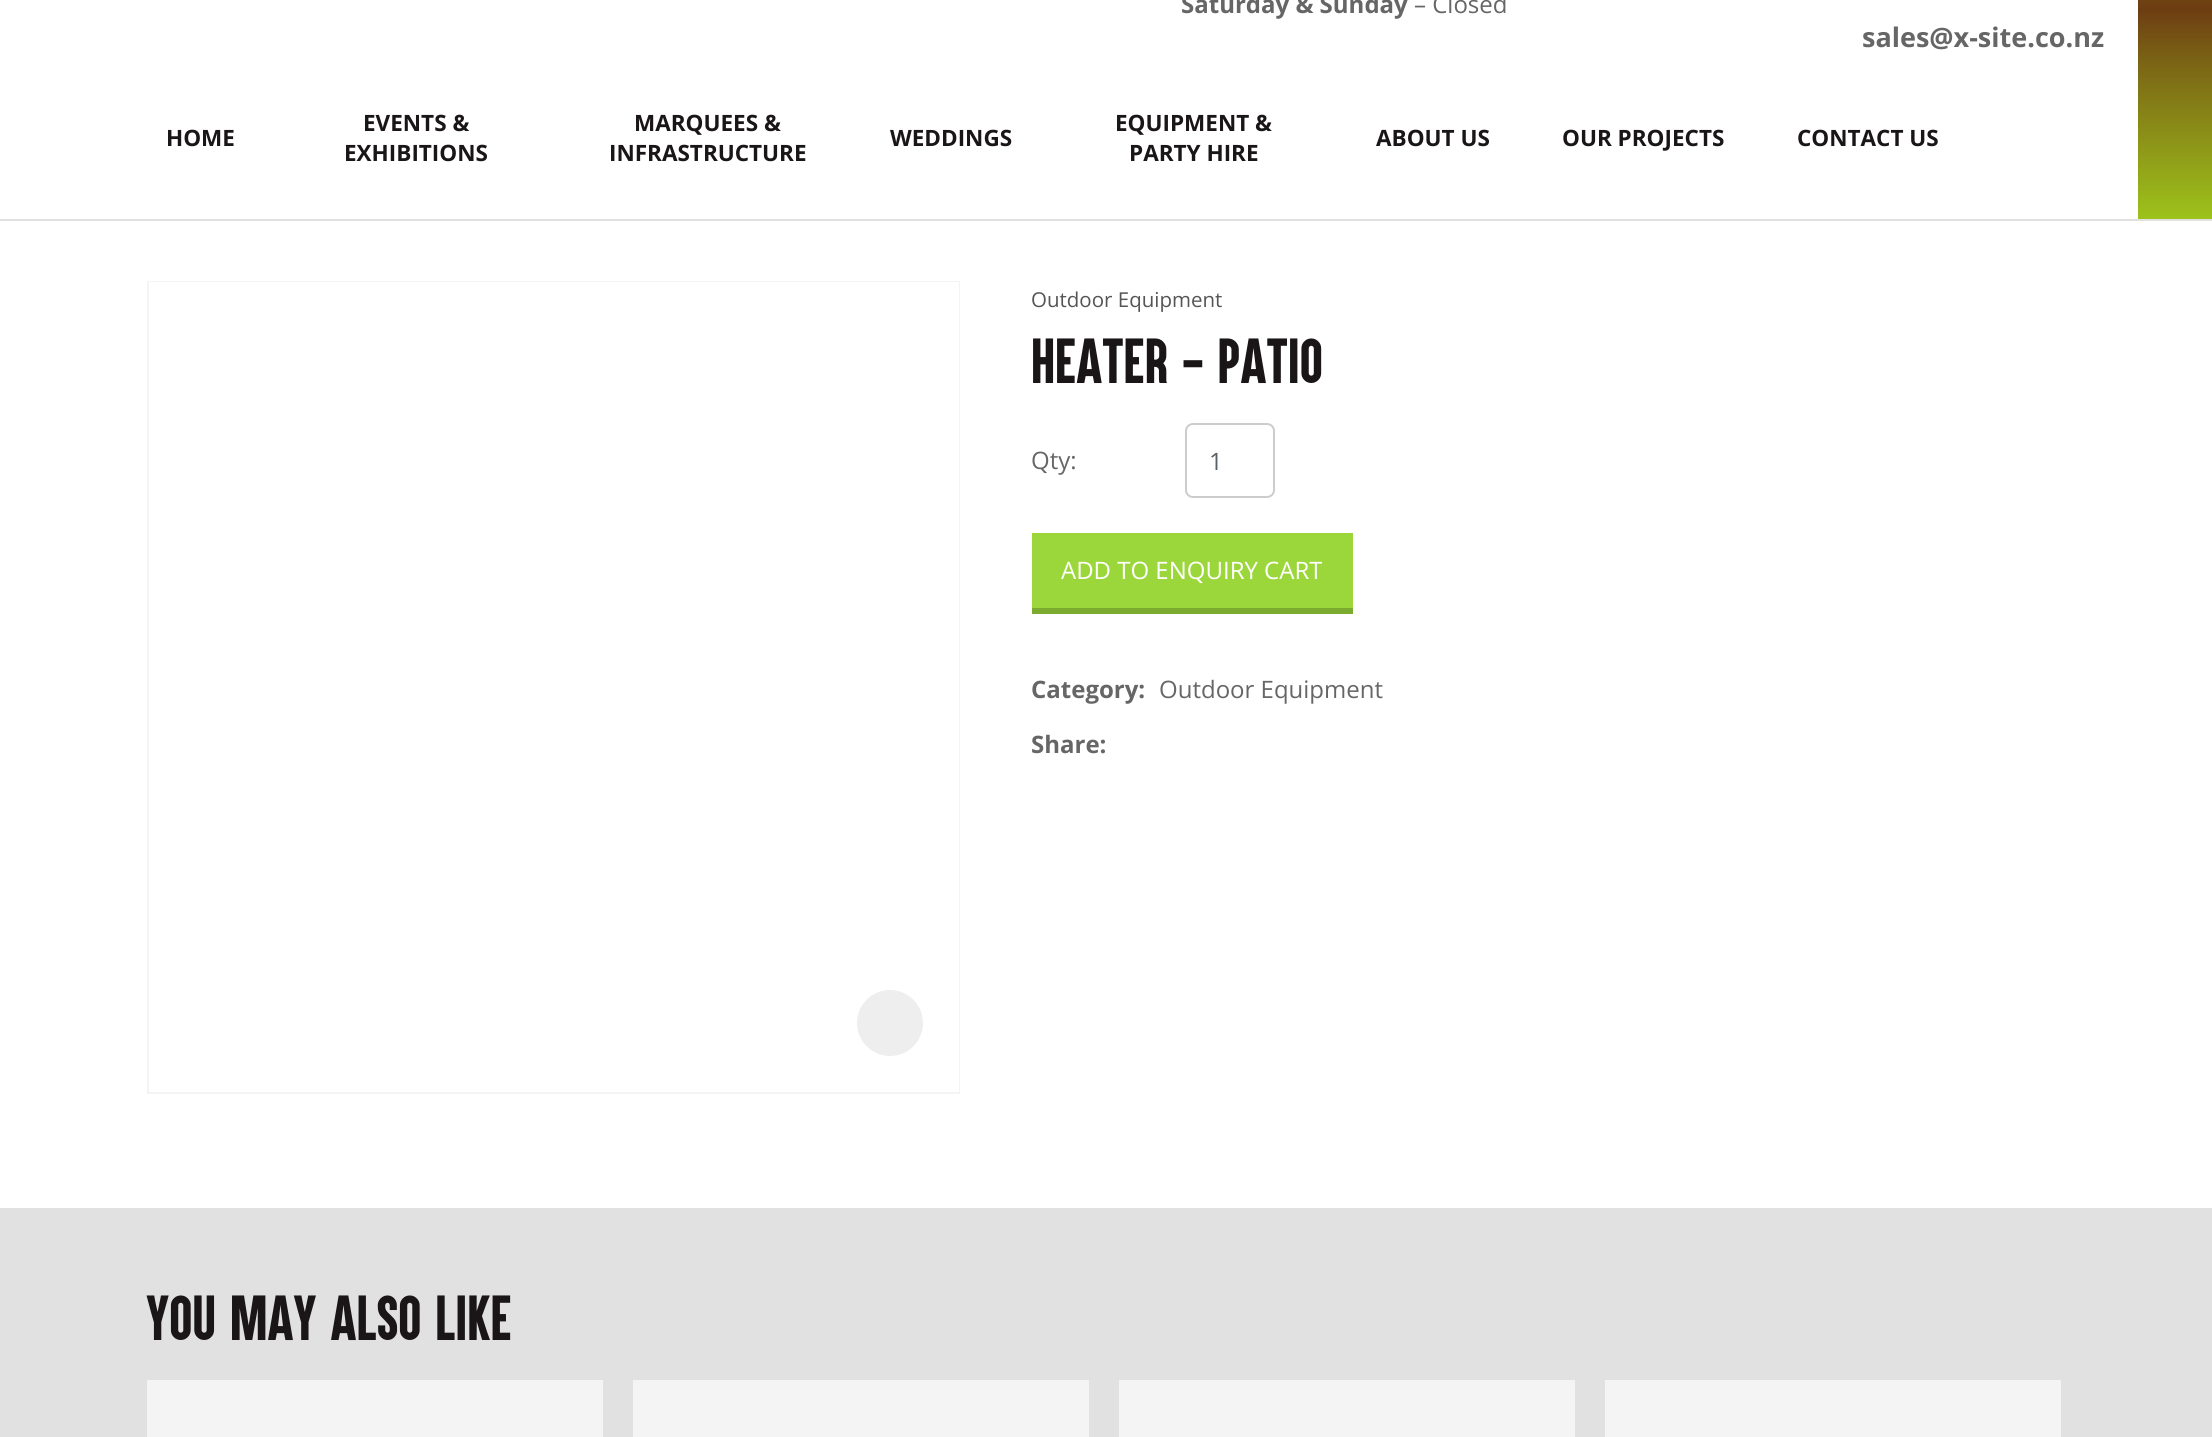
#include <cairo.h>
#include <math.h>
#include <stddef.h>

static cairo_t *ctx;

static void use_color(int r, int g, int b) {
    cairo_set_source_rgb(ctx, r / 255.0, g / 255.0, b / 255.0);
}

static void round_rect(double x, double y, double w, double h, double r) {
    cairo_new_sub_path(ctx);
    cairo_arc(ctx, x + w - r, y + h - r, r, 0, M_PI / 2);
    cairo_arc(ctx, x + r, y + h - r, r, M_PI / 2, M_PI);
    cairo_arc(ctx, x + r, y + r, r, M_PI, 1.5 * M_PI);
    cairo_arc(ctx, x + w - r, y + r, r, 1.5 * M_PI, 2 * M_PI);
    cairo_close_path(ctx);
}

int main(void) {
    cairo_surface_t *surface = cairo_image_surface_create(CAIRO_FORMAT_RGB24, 2212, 1437);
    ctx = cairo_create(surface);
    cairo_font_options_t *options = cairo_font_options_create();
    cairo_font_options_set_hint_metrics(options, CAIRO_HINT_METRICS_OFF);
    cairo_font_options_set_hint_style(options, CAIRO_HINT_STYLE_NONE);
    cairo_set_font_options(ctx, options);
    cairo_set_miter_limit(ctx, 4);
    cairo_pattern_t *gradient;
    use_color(255, 255, 255);
    cairo_paint(ctx);
    cairo_select_font_face(ctx, "Open Sans", CAIRO_FONT_SLANT_NORMAL, CAIRO_FONT_WEIGHT_BOLD);
    cairo_set_font_size(ctx, 24);
    use_color(102, 102, 102);
    cairo_move_to(ctx, 1181, 13);
    cairo_show_text(ctx, "Saturday & Sunday");
    cairo_select_font_face(ctx, "Open Sans", CAIRO_FONT_SLANT_NORMAL, CAIRO_FONT_WEIGHT_NORMAL);
    cairo_move_to(ctx, 1414, 13);
    cairo_show_text(ctx, "– Closed");
    cairo_select_font_face(ctx, "Open Sans", CAIRO_FONT_SLANT_NORMAL, CAIRO_FONT_WEIGHT_BOLD);
    cairo_set_font_size(ctx, 27);
    cairo_move_to(ctx, 1862, 47);
    cairo_show_text(ctx, "sales@x-site.co.nz");
    cairo_set_font_size(ctx, 22.5);
    use_color(26, 22, 23);
    cairo_move_to(ctx, 166, 146);
    cairo_show_text(ctx, "HOME");
    cairo_move_to(ctx, 363, 131);
    cairo_show_text(ctx, "EVENTS &");
    cairo_move_to(ctx, 344, 161);
    cairo_show_text(ctx, "EXHIBITIONS");
    cairo_move_to(ctx, 634, 131);
    cairo_show_text(ctx, "MARQUEES &");
    cairo_move_to(ctx, 609, 161);
    cairo_show_text(ctx, "INFRASTRUCTURE");
    cairo_move_to(ctx, 890, 146);
    cairo_show_text(ctx, "WEDDINGS");
    cairo_move_to(ctx, 1115, 131);
    cairo_show_text(ctx, "EQUIPMENT &");
    cairo_move_to(ctx, 1129, 161);
    cairo_show_text(ctx, "PARTY HIRE");
    cairo_move_to(ctx, 1376, 146);
    cairo_show_text(ctx, "ABOUT US");
    cairo_move_to(ctx, 1562, 146);
    cairo_show_text(ctx, "OUR PROJECTS");
    cairo_move_to(ctx, 1797, 146);
    cairo_show_text(ctx, "CONTACT US");
    gradient = cairo_pattern_create_linear(2175, -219, 2175, 219);
    cairo_pattern_add_color_stop_rgba(gradient, 0, 0.616, 0.761, 0.106, 1);
    cairo_pattern_add_color_stop_rgba(gradient, 0.52, 0.427, 0.239, 0.071, 1);
    cairo_pattern_add_color_stop_rgba(gradient, 0.64, 0.482, 0.392, 0.082, 1);
    cairo_pattern_add_color_stop_rgba(gradient, 1, 0.616, 0.761, 0.106, 1);
    cairo_set_source(ctx, gradient);
    cairo_pattern_destroy(gradient);
    cairo_rectangle(ctx, 2138, 0, 74, 219);
    cairo_fill(ctx);
    use_color(225, 225, 225);
    cairo_rectangle(ctx, 0, 219, 2212, 2);
    cairo_fill(ctx);
    cairo_rectangle(ctx, 148, 282, 811, 811);
    use_color(244, 244, 244);
    cairo_stroke(ctx);
    use_color(255, 255, 255);
    cairo_rectangle(ctx, 149, 282, 810, 810);
    cairo_fill(ctx);
    use_color(238, 238, 238);
    cairo_arc(ctx, 890, 1023, 33, 0, 2 * M_PI);
    cairo_fill(ctx);
    cairo_select_font_face(ctx, "Open Sans", CAIRO_FONT_SLANT_NORMAL, CAIRO_FONT_WEIGHT_NORMAL);
    cairo_set_font_size(ctx, 20.5);
    use_color(85, 85, 85);
    cairo_move_to(ctx, 1031, 307);
    cairo_show_text(ctx, "Outdoor Equipment");
    cairo_select_font_face(ctx, "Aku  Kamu", CAIRO_FONT_SLANT_ITALIC, CAIRO_FONT_WEIGHT_NORMAL);
    cairo_set_font_size(ctx, 52.5);
    use_color(26, 22, 23);
    cairo_move_to(ctx, 1031, 383);
    cairo_show_text(ctx, "Heater - Patio");
    cairo_select_font_face(ctx, "Open Sans", CAIRO_FONT_SLANT_NORMAL, CAIRO_FONT_WEIGHT_NORMAL);
    cairo_set_font_size(ctx, 24);
    use_color(102, 102, 102);
    cairo_move_to(ctx, 1031, 469);
    cairo_show_text(ctx, "Qty:");
    round_rect(1186, 424, 88, 73, 7);
    use_color(204, 204, 204);
    cairo_stroke(ctx);
    use_color(87, 97, 102);
    cairo_move_to(ctx, 1209, 470);
    cairo_show_text(ctx, "1");
    use_color(155, 215, 59);
    cairo_rectangle(ctx, 1032, 533, 321, 75);
    cairo_fill(ctx);
    use_color(124, 172, 47);
    cairo_rectangle(ctx, 1032, 608, 321, 6);
    cairo_fill(ctx);
    use_color(255, 255, 255);
    cairo_move_to(ctx, 1061, 579);
    cairo_show_text(ctx, "ADD TO ENQUIRY CART");
    cairo_select_font_face(ctx, "Open Sans", CAIRO_FONT_SLANT_NORMAL, CAIRO_FONT_WEIGHT_BOLD);
    use_color(102, 102, 102);
    cairo_move_to(ctx, 1031, 698);
    cairo_show_text(ctx, "Category:");
    cairo_select_font_face(ctx, "Open Sans", CAIRO_FONT_SLANT_NORMAL, CAIRO_FONT_WEIGHT_NORMAL);
    cairo_move_to(ctx, 1159, 698);
    cairo_show_text(ctx, "Outdoor Equipment");
    cairo_select_font_face(ctx, "Open Sans", CAIRO_FONT_SLANT_NORMAL, CAIRO_FONT_WEIGHT_BOLD);
    cairo_move_to(ctx, 1031, 753);
    cairo_show_text(ctx, "Share:");
    use_color(225, 225, 225);
    cairo_rectangle(ctx, 0, 1208, 2212, 229);
    cairo_fill(ctx);
    cairo_select_font_face(ctx, "Aku  Kamu", CAIRO_FONT_SLANT_ITALIC, CAIRO_FONT_WEIGHT_NORMAL);
    cairo_set_font_size(ctx, 52.5);
    use_color(26, 22, 23);
    cairo_move_to(ctx, 146, 1340);
    cairo_show_text(ctx, "You May Also Like");
    use_color(244, 244, 244);
    cairo_rectangle(ctx, 147, 1380, 456, 57);
    cairo_fill(ctx);
    cairo_rectangle(ctx, 633, 1380, 456, 57);
    cairo_fill(ctx);
    cairo_rectangle(ctx, 1119, 1380, 456, 57);
    cairo_fill(ctx);
    cairo_rectangle(ctx, 1605, 1380, 456, 57);
    cairo_fill(ctx);
    cairo_surface_write_to_png(surface, "result.png");
    cairo_font_options_destroy(options);
    cairo_destroy(ctx);
    cairo_surface_destroy(surface);
    return 0;
}
